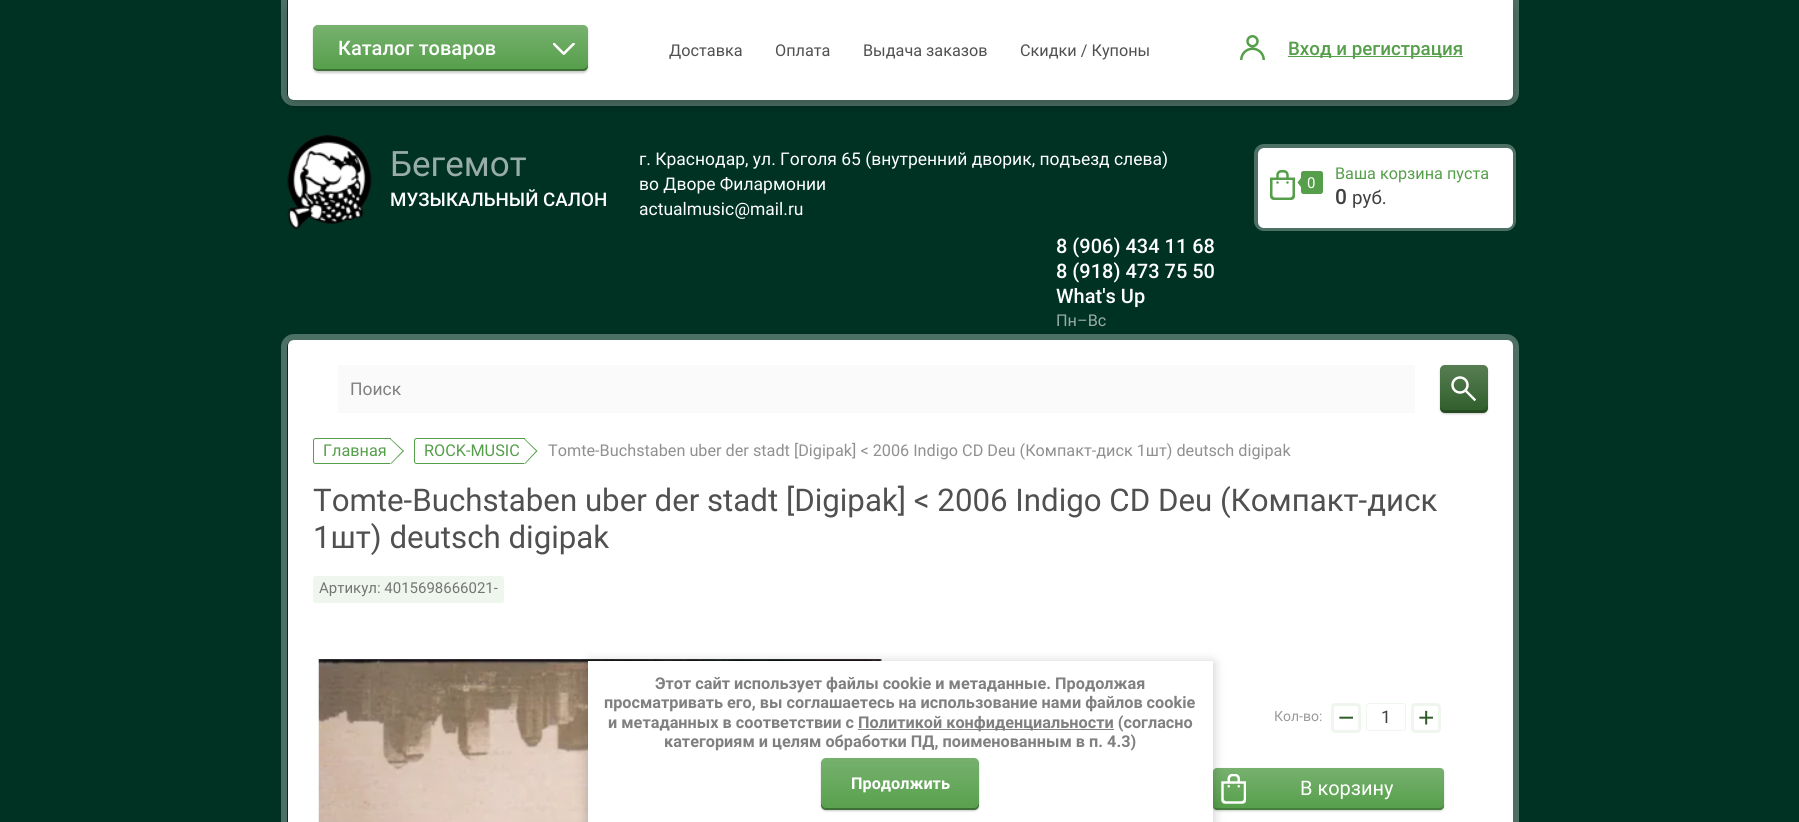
#include <cairo.h>
#include <math.h>
#include <stddef.h>

static cairo_t *ctx;

static void use_color(int r, int g, int b) {
    cairo_set_source_rgb(ctx, r / 255.0, g / 255.0, b / 255.0);
}

static void round_rect(double x, double y, double w, double h, double r) {
    cairo_new_sub_path(ctx);
    cairo_arc(ctx, x + w - r, y + h - r, r, 0, M_PI / 2);
    cairo_arc(ctx, x + r, y + h - r, r, M_PI / 2, M_PI);
    cairo_arc(ctx, x + r, y + r, r, M_PI, 1.5 * M_PI);
    cairo_arc(ctx, x + w - r, y + r, r, 1.5 * M_PI, 2 * M_PI);
    cairo_close_path(ctx);
}

static void shadow(double x, double y, double w, double h, double r, double blur, double alpha) {
    cairo_push_group_with_content(ctx, CAIRO_CONTENT_ALPHA);
    cairo_set_operator(ctx, CAIRO_OPERATOR_SOURCE);
    for (int i = 15; i >= -15 && fmin(w, h) + blur * i / 3 > 0; i -= 2) {
        double e = blur * i / 6;
        cairo_set_source_rgba(ctx, 0, 0, 0, alpha * erfc((i - 1) / 8.5) / 2);
        round_rect(x - e, y - e, w + 2 * e, h + 2 * e, fmax(0, fmin(r + e + blur * .6, fmin(w, h) / 2 + e)));
        cairo_fill(ctx);
    }
    cairo_pattern_t *soft = cairo_pop_group(ctx);
    cairo_mask(ctx, soft);
    cairo_pattern_destroy(soft);
}

static void picture(const char *path, double x, double y, double w, double h) {
    cairo_surface_t *image = cairo_image_surface_create_from_png(path);
    cairo_save(ctx);
    cairo_set_source_surface(ctx, image, x, y);
    cairo_rectangle(ctx, x, y, w, h);
    cairo_fill(ctx);
    cairo_restore(ctx);
    cairo_surface_destroy(image);
}

int main(void) {
    cairo_surface_t *surface = cairo_image_surface_create(CAIRO_FORMAT_RGB24, 1799, 822);
    ctx = cairo_create(surface);
    cairo_font_options_t *options = cairo_font_options_create();
    cairo_font_options_set_hint_metrics(options, CAIRO_HINT_METRICS_OFF);
    cairo_font_options_set_hint_style(options, CAIRO_HINT_STYLE_NONE);
    cairo_set_font_options(ctx, options);
    cairo_set_miter_limit(ctx, 4);
    cairo_pattern_t *gradient;
    use_color(0, 50, 35);
    cairo_paint(ctx);
    cairo_new_path(ctx);
    cairo_move_to(ctx, 284, -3);
    cairo_line_to(ctx, 1516, -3);
    cairo_line_to(ctx, 1516, 93);
    cairo_curve_to(ctx, 1516, 98.5, 1511.5, 103, 1506, 103);
    cairo_line_to(ctx, 294, 103);
    cairo_curve_to(ctx, 288.5, 103, 284, 98.5, 284, 93);
    cairo_close_path(ctx);
    use_color(77, 112, 101);
    cairo_set_line_width(ctx, 6);
    cairo_stroke(ctx);
    use_color(0, 0, 0);
    shadow(288, 6, 1225, 100, 6, 6, 0.2);
    use_color(255, 255, 255);
    cairo_new_path(ctx);
    cairo_move_to(ctx, 288, 0);
    cairo_line_to(ctx, 1513, 0);
    cairo_line_to(ctx, 1513, 94);
    cairo_curve_to(ctx, 1513, 97.5, 1510.5, 100, 1507, 100);
    cairo_line_to(ctx, 294, 100);
    cairo_curve_to(ctx, 290.5, 100, 288, 97.5, 288, 94);
    cairo_close_path(ctx);
    cairo_fill(ctx);
    use_color(0, 0, 0);
    shadow(313, 26, 275, 47, 5, 1, 0.2);
    use_color(85, 158, 74);
    round_rect(313, 25, 275, 46, 5);
    cairo_fill(ctx);
    gradient = cairo_pattern_create_linear(450, 71, 450, 25);
    cairo_pattern_add_color_stop_rgba(gradient, 0, 1, 1, 1, 0);
    cairo_pattern_add_color_stop_rgba(gradient, 1, 1, 1, 1, 0.2);
    cairo_set_source(ctx, gradient);
    cairo_pattern_destroy(gradient);
    round_rect(313, 25, 275, 46, 5);
    cairo_fill(ctx);
    cairo_set_source_rgba(ctx, 0, 0, 0, 0.3);
    cairo_new_path(ctx);
    cairo_move_to(ctx, 313, 67);
    cairo_curve_to(ctx, 313, 69, 316, 71, 318, 71);
    cairo_line_to(ctx, 583, 71);
    cairo_curve_to(ctx, 586, 71, 588, 69, 588, 66);
    cairo_line_to(ctx, 588, 64);
    cairo_curve_to(ctx, 588, 67, 585, 69, 582, 69);
    cairo_line_to(ctx, 318, 69);
    cairo_curve_to(ctx, 316, 69, 314, 68, 313, 67);
    cairo_close_path(ctx);
    cairo_fill(ctx);
    picture("img1.png", 553, 43, 22, 12);
    cairo_select_font_face(ctx, "Roboto Medium", CAIRO_FONT_SLANT_NORMAL, CAIRO_FONT_WEIGHT_NORMAL);
    cairo_set_font_size(ctx, 20);
    use_color(255, 255, 255);
    cairo_move_to(ctx, 338, 55);
    cairo_show_text(ctx, "Каталог товаров");
    picture("img2.png", 1240, 35, 25, 25);
    use_color(85, 158, 74);
    cairo_rectangle(ctx, 1288, 56, 175, 1);
    cairo_fill(ctx);
    cairo_set_font_size(ctx, 18.75);
    cairo_move_to(ctx, 1288, 55);
    cairo_show_text(ctx, "Вход и регистрация");
    cairo_select_font_face(ctx, "roboto", CAIRO_FONT_SLANT_NORMAL, CAIRO_FONT_WEIGHT_NORMAL);
    cairo_set_font_size(ctx, 16.25);
    use_color(80, 80, 80);
    cairo_move_to(ctx, 669, 56);
    cairo_show_text(ctx, "Доставка");
    cairo_move_to(ctx, 775, 56);
    cairo_show_text(ctx, "Оплата");
    cairo_move_to(ctx, 863, 56);
    cairo_show_text(ctx, "Выдача заказов");
    cairo_move_to(ctx, 1020, 56);
    cairo_show_text(ctx, "Скидки / Купоны");
    picture("img3.png", 287, 135, 85, 95);
    cairo_set_font_size(ctx, 35);
    use_color(153, 173, 167);
    cairo_move_to(ctx, 390, 176);
    cairo_show_text(ctx, "Бегемот");
    cairo_select_font_face(ctx, "Roboto Medium", CAIRO_FONT_SLANT_NORMAL, CAIRO_FONT_WEIGHT_NORMAL);
    cairo_set_font_size(ctx, 18.75);
    use_color(255, 255, 255);
    cairo_move_to(ctx, 390, 206);
    cairo_show_text(ctx, "МУЗЫКАЛЬНЫЙ САЛОН");
    cairo_select_font_face(ctx, "roboto", CAIRO_FONT_SLANT_NORMAL, CAIRO_FONT_WEIGHT_NORMAL);
    cairo_set_font_size(ctx, 17.5);
    cairo_move_to(ctx, 639, 165);
    cairo_show_text(ctx, "г. Краснодар, ул. Гоголя 65 (внутренний дворик, подъезд слева)");
    cairo_move_to(ctx, 639, 190);
    cairo_show_text(ctx, "во Дворе Филармонии");
    cairo_move_to(ctx, 639, 215);
    cairo_show_text(ctx, "actualmusic@mail.ru");
    round_rect(1256, 146, 258, 83, 8);
    use_color(77, 112, 101);
    cairo_set_line_width(ctx, 4);
    cairo_stroke(ctx);
    use_color(255, 255, 255);
    round_rect(1258, 148, 255, 80, 6);
    cairo_fill(ctx);
    picture("img4.png", 1270, 170, 25, 30);
    use_color(85, 158, 74);
    round_rect(1301, 171, 22, 23, 2.5);
    cairo_fill(ctx);
    cairo_new_path(ctx);
    cairo_move_to(ctx, 1302.5, 176);
    cairo_line_to(ctx, 1302.5, 189);
    cairo_line_to(ctx, 1297.5, 182.5);
    cairo_close_path(ctx);
    cairo_fill(ctx);
    cairo_set_font_size(ctx, 15);
    use_color(255, 255, 255);
    cairo_move_to(ctx, 1307, 188);
    cairo_show_text(ctx, "0");
    cairo_set_font_size(ctx, 16.25);
    use_color(85, 158, 74);
    cairo_move_to(ctx, 1335, 179);
    cairo_show_text(ctx, "Ваша корзина пуста");
    cairo_select_font_face(ctx, "Roboto Medium", CAIRO_FONT_SLANT_NORMAL, CAIRO_FONT_WEIGHT_NORMAL);
    cairo_set_font_size(ctx, 21);
    use_color(64, 64, 64);
    cairo_move_to(ctx, 1335, 204);
    cairo_show_text(ctx, "0");
    cairo_select_font_face(ctx, "roboto", CAIRO_FONT_SLANT_NORMAL, CAIRO_FONT_WEIGHT_NORMAL);
    cairo_set_font_size(ctx, 18.75);
    cairo_move_to(ctx, 1352, 204);
    cairo_show_text(ctx, "руб.");
    cairo_select_font_face(ctx, "Roboto Medium", CAIRO_FONT_SLANT_NORMAL, CAIRO_FONT_WEIGHT_NORMAL);
    cairo_set_font_size(ctx, 20);
    use_color(255, 255, 255);
    cairo_move_to(ctx, 1056, 253);
    cairo_show_text(ctx, "8 (906) 434 11 68");
    cairo_move_to(ctx, 1056, 278);
    cairo_show_text(ctx, "8 (918) 473 75 50");
    cairo_move_to(ctx, 1056, 303);
    cairo_show_text(ctx, "What's Up");
    cairo_select_font_face(ctx, "roboto", CAIRO_FONT_SLANT_NORMAL, CAIRO_FONT_WEIGHT_NORMAL);
    cairo_set_font_size(ctx, 16.25);
    use_color(153, 173, 167);
    cairo_move_to(ctx, 1056, 326);
    cairo_show_text(ctx, "Пн–Вс");
    cairo_new_path(ctx);
    cairo_move_to(ctx, 294, 337);
    cairo_line_to(ctx, 1506, 337);
    cairo_curve_to(ctx, 1511.5, 337, 1516, 341.5, 1516, 347);
    cairo_line_to(ctx, 1516, 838);
    cairo_line_to(ctx, 284, 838);
    cairo_line_to(ctx, 284, 347);
    cairo_curve_to(ctx, 284, 341.5, 288.5, 337, 294, 337);
    cairo_close_path(ctx);
    use_color(77, 112, 101);
    cairo_set_line_width(ctx, 6);
    cairo_stroke(ctx);
    use_color(255, 255, 255);
    cairo_new_path(ctx);
    cairo_move_to(ctx, 294, 340);
    cairo_line_to(ctx, 1507, 340);
    cairo_curve_to(ctx, 1510.5, 340, 1513, 342.5, 1513, 346);
    cairo_line_to(ctx, 1513, 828);
    cairo_line_to(ctx, 288, 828);
    cairo_line_to(ctx, 288, 346);
    cairo_curve_to(ctx, 288, 342.5, 290.5, 340, 294, 340);
    cairo_close_path(ctx);
    cairo_fill(ctx);
    use_color(249, 250, 249);
    cairo_rectangle(ctx, 338, 365, 1077, 48);
    cairo_fill(ctx);
    cairo_set_font_size(ctx, 17.5);
    use_color(128, 128, 128);
    cairo_move_to(ctx, 350, 395);
    cairo_show_text(ctx, "Поиск");
    use_color(0, 0, 0);
    shadow(1440, 366, 48, 48, 5, 1, 0.2);
    use_color(46, 93, 41);
    round_rect(1440, 365, 48, 48, 5);
    cairo_fill(ctx);
    gradient = cairo_pattern_create_linear(1464, 413, 1464, 365);
    cairo_pattern_add_color_stop_rgba(gradient, 0, 1, 1, 1, 0);
    cairo_pattern_add_color_stop_rgba(gradient, 1, 1, 1, 1, 0.2);
    cairo_set_source(ctx, gradient);
    cairo_pattern_destroy(gradient);
    round_rect(1440, 365, 48, 48, 5);
    cairo_fill(ctx);
    cairo_set_source_rgba(ctx, 0, 0, 0, 0.2);
    cairo_new_path(ctx);
    cairo_move_to(ctx, 1440, 405);
    cairo_curve_to(ctx, 1440, 414, 1443, 413, 1451, 413);
    cairo_line_to(ctx, 1477, 413);
    cairo_curve_to(ctx, 1485, 413, 1488, 414, 1488, 405);
    cairo_curve_to(ctx, 1488, 408, 1485, 410, 1482, 410);
    cairo_line_to(ctx, 1445, 410);
    cairo_curve_to(ctx, 1442, 410, 1440, 408, 1440, 405);
    cairo_close_path(ctx);
    cairo_fill(ctx);
    picture("img5.png", 1451, 376, 25, 25);
    cairo_new_path(ctx);
    cairo_move_to(ctx, 315.5, 438.5);
    cairo_line_to(ctx, 390.5, 438.5);
    cairo_line_to(ctx, 390.5, 463.5);
    cairo_line_to(ctx, 315.5, 463.5);
    cairo_curve_to(ctx, 314.5, 463.5, 313.5, 462.5, 313.5, 461.5);
    cairo_line_to(ctx, 313.5, 440.5);
    cairo_curve_to(ctx, 313.5, 439.5, 314.5, 438.5, 315.5, 438.5);
    cairo_close_path(ctx);
    use_color(85, 158, 74);
    cairo_set_line_width(ctx, 1);
    cairo_stroke(ctx);
    cairo_new_path(ctx);
    cairo_move_to(ctx, 391, 464);
    cairo_line_to(ctx, 391, 439);
    cairo_line_to(ctx, 404, 451);
    cairo_close_path(ctx);
    cairo_fill(ctx);
    use_color(255, 255, 255);
    cairo_new_path(ctx);
    cairo_move_to(ctx, 390, 464);
    cairo_line_to(ctx, 390, 439);
    cairo_line_to(ctx, 402.5, 451);
    cairo_close_path(ctx);
    cairo_fill(ctx);
    cairo_set_font_size(ctx, 16.25);
    use_color(85, 158, 74);
    cairo_move_to(ctx, 323, 456);
    cairo_show_text(ctx, "Главная");
    cairo_new_path(ctx);
    cairo_move_to(ctx, 416.5, 438.5);
    cairo_line_to(ctx, 524.5, 438.5);
    cairo_line_to(ctx, 524.5, 463.5);
    cairo_line_to(ctx, 416.5, 463.5);
    cairo_curve_to(ctx, 415.5, 463.5, 414.5, 462.5, 414.5, 461.5);
    cairo_line_to(ctx, 414.5, 440.5);
    cairo_curve_to(ctx, 414.5, 439.5, 415.5, 438.5, 416.5, 438.5);
    cairo_close_path(ctx);
    cairo_stroke(ctx);
    cairo_new_path(ctx);
    cairo_move_to(ctx, 525, 464);
    cairo_line_to(ctx, 525, 439);
    cairo_line_to(ctx, 537.5, 451);
    cairo_close_path(ctx);
    cairo_fill(ctx);
    use_color(255, 255, 255);
    cairo_new_path(ctx);
    cairo_move_to(ctx, 524, 464);
    cairo_line_to(ctx, 524, 439);
    cairo_line_to(ctx, 536, 451);
    cairo_close_path(ctx);
    cairo_fill(ctx);
    use_color(85, 158, 74);
    cairo_move_to(ctx, 424, 456);
    cairo_show_text(ctx, "ROCK-MUSIC");
    use_color(144, 144, 144);
    cairo_move_to(ctx, 548, 456);
    cairo_show_text(ctx, "Tomte-Buchstaben uber der stadt [Digipak] < 2006 Indigo CD Deu (Компакт-диск 1шт) deutsch digipak");
    cairo_set_font_size(ctx, 31.25);
    use_color(80, 80, 80);
    cairo_move_to(ctx, 313, 511);
    cairo_show_text(ctx, "Tomte-Buchstaben uber der stadt [Digipak] < 2006 Indigo CD Deu (Компакт-диск");
    cairo_move_to(ctx, 313, 548);
    cairo_show_text(ctx, "1шт) deutsch digipak");
    use_color(239, 246, 238);
    round_rect(313, 576, 191, 27, 2.5);
    cairo_fill(ctx);
    cairo_set_font_size(ctx, 15);
    use_color(117, 117, 117);
    cairo_move_to(ctx, 319, 593);
    cairo_show_text(ctx, "Артикул: 4015698666021-");
    picture("img6.png", 318, 659, 564, 163);
    cairo_set_font_size(ctx, 14);
    use_color(153, 153, 153);
    cairo_move_to(ctx, 1274, 721);
    cairo_show_text(ctx, "Кол-во:");
    round_rect(1332.5, 704.5, 27, 27, 2.5);
    use_color(239, 246, 238);
    cairo_set_line_width(ctx, 3);
    cairo_stroke(ctx);
    cairo_select_font_face(ctx, "Liberation Sans", CAIRO_FONT_SLANT_NORMAL, CAIRO_FONT_WEIGHT_NORMAL);
    cairo_set_font_size(ctx, 28);
    use_color(46, 93, 41);
    cairo_move_to(ctx, 1338, 727);
    cairo_show_text(ctx, "−");
    round_rect(1366.5, 703.5, 39, 27, 2);
    use_color(239, 246, 238);
    cairo_set_line_width(ctx, 1);
    cairo_stroke(ctx);
    cairo_select_font_face(ctx, "roboto", CAIRO_FONT_SLANT_NORMAL, CAIRO_FONT_WEIGHT_NORMAL);
    cairo_set_font_size(ctx, 17.5);
    use_color(64, 64, 64);
    cairo_move_to(ctx, 1381, 723);
    cairo_show_text(ctx, "1");
    round_rect(1412.5, 704.5, 27, 27, 2.5);
    use_color(239, 246, 238);
    cairo_set_line_width(ctx, 3);
    cairo_stroke(ctx);
    cairo_select_font_face(ctx, "Liberation Sans", CAIRO_FONT_SLANT_NORMAL, CAIRO_FONT_WEIGHT_NORMAL);
    cairo_set_font_size(ctx, 28);
    use_color(46, 93, 41);
    cairo_move_to(ctx, 1418, 727);
    cairo_show_text(ctx, "+");
    use_color(0, 0, 0);
    shadow(1213, 769, 231, 42, 4, 1, 0.2);
    use_color(85, 158, 74);
    round_rect(1213, 768, 231, 42, 4);
    cairo_fill(ctx);
    gradient = cairo_pattern_create_linear(1328, 810, 1328, 768);
    cairo_pattern_add_color_stop_rgba(gradient, 0, 1, 1, 1, 0);
    cairo_pattern_add_color_stop_rgba(gradient, 1, 1, 1, 1, 0.2);
    cairo_set_source(ctx, gradient);
    cairo_pattern_destroy(gradient);
    round_rect(1213, 768, 231, 42, 4);
    cairo_fill(ctx);
    cairo_set_source_rgba(ctx, 0, 0, 0, 0.2);
    cairo_new_path(ctx);
    cairo_move_to(ctx, 1213, 807);
    cairo_curve_to(ctx, 1213, 808, 1215, 810, 1217, 810);
    cairo_line_to(ctx, 1440, 810);
    cairo_curve_to(ctx, 1442, 810, 1444, 808, 1444, 806);
    cairo_line_to(ctx, 1444, 804);
    cairo_curve_to(ctx, 1444, 806, 1442, 808, 1440, 808);
    cairo_line_to(ctx, 1216, 808);
    cairo_curve_to(ctx, 1215, 808, 1214, 807, 1213, 807);
    cairo_close_path(ctx);
    cairo_fill(ctx);
    picture("img7.png", 1221, 774, 25, 30);
    cairo_select_font_face(ctx, "roboto", CAIRO_FONT_SLANT_NORMAL, CAIRO_FONT_WEIGHT_NORMAL);
    cairo_set_font_size(ctx, 20);
    use_color(255, 255, 255);
    cairo_move_to(ctx, 1300, 795);
    cairo_show_text(ctx, "В корзину");
    use_color(0, 0, 0);
    shadow(588, 663, 625, 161, 0, 6, 0.23);
    use_color(255, 255, 255);
    cairo_rectangle(ctx, 588, 661, 625, 161);
    cairo_fill(ctx);
    cairo_select_font_face(ctx, "roboto", CAIRO_FONT_SLANT_NORMAL, CAIRO_FONT_WEIGHT_BOLD);
    cairo_set_font_size(ctx, 16.25);
    use_color(128, 128, 128);
    cairo_move_to(ctx, 655, 689);
    cairo_show_text(ctx, "Этот сайт использует файлы cookie и метаданные. Продолжая");
    cairo_move_to(ctx, 604, 708);
    cairo_show_text(ctx, "просматривать его, вы соглашаетесь на использование нами файлов cookie");
    cairo_move_to(ctx, 608, 728);
    cairo_show_text(ctx, "и метаданных в соответствии с");
    cairo_rectangle(ctx, 858, 729, 256, 1);
    cairo_fill(ctx);
    cairo_move_to(ctx, 858, 728);
    cairo_show_text(ctx, "Политикой конфиденциальности (согласно");
    cairo_move_to(ctx, 664, 747);
    cairo_show_text(ctx, "категориям и целям обработки ПД, поименованным в п. 4.3)");
    use_color(0, 0, 0);
    shadow(821, 759, 158, 52, 5, 1, 0.2);
    gradient = cairo_pattern_create_linear(900, 810, 900, 758);
    cairo_pattern_add_color_stop_rgba(gradient, 0, 0.345, 0.627, 0.302, 1);
    cairo_pattern_add_color_stop_rgba(gradient, 1, 0.463, 0.694, 0.431, 1);
    cairo_set_source(ctx, gradient);
    cairo_pattern_destroy(gradient);
    round_rect(821, 758, 158, 52, 5);
    cairo_fill(ctx);
    cairo_set_source_rgba(ctx, 0, 0, 0, 0.3);
    cairo_new_path(ctx);
    cairo_move_to(ctx, 821, 802);
    cairo_line_to(ctx, 821, 805);
    cairo_curve_to(ctx, 821, 808, 823, 810, 826, 810);
    cairo_line_to(ctx, 974, 810);
    cairo_curve_to(ctx, 977, 810, 979, 808, 979, 805);
    cairo_line_to(ctx, 979, 802);
    cairo_curve_to(ctx, 979, 805, 977, 808, 974, 808);
    cairo_line_to(ctx, 826, 808);
    cairo_curve_to(ctx, 823, 808, 821, 805, 821, 802);
    cairo_close_path(ctx);
    cairo_fill(ctx);
    use_color(255, 255, 255);
    cairo_move_to(ctx, 851, 789);
    cairo_show_text(ctx, "Продолжить");
    cairo_surface_write_to_png(surface, "result.png");
    cairo_font_options_destroy(options);
    cairo_destroy(ctx);
    cairo_surface_destroy(surface);
    return 0;
}
